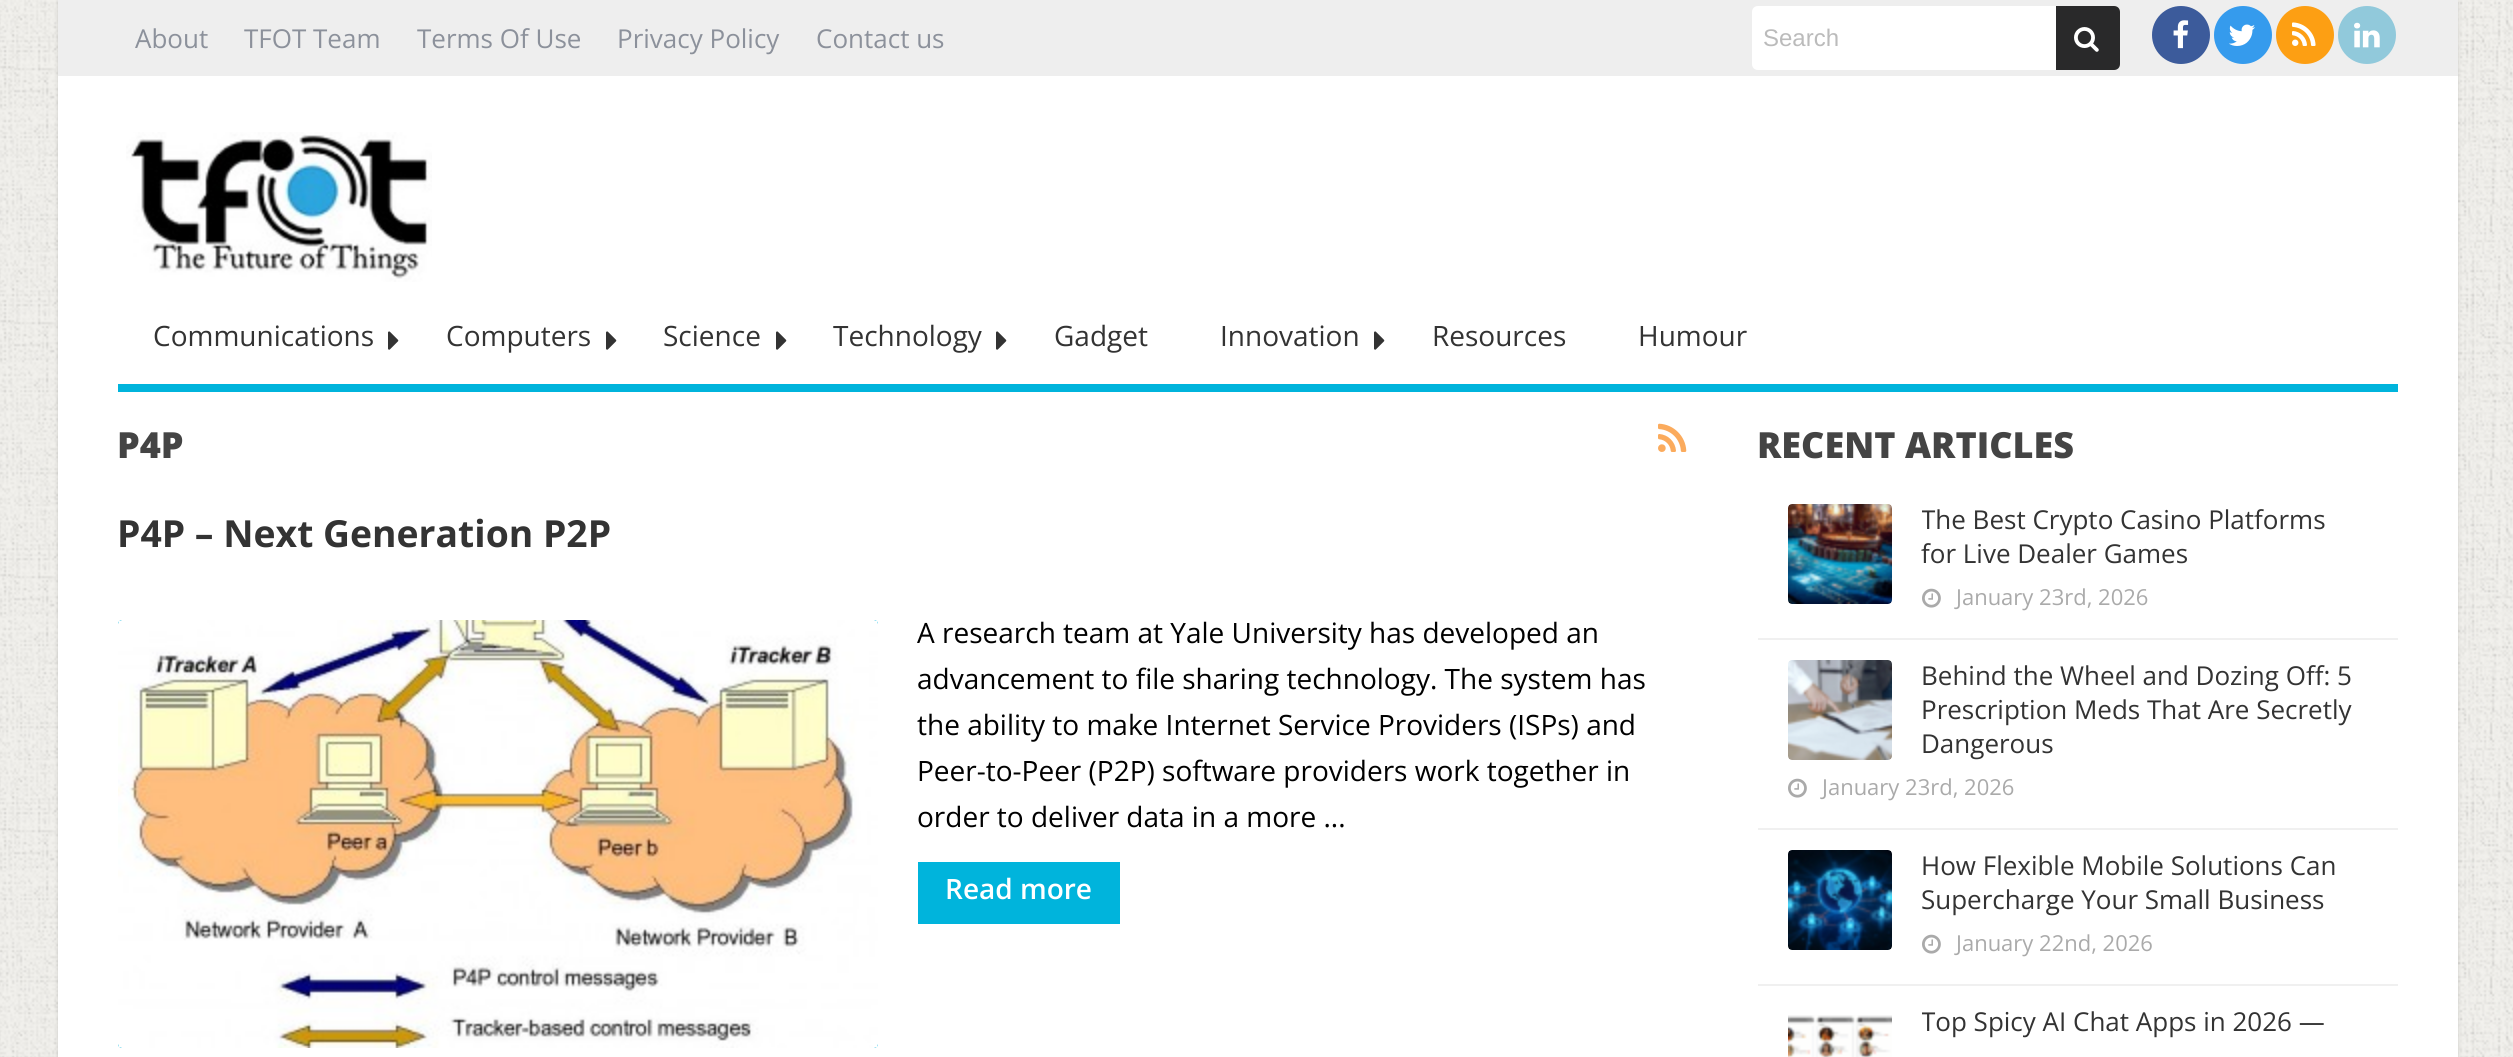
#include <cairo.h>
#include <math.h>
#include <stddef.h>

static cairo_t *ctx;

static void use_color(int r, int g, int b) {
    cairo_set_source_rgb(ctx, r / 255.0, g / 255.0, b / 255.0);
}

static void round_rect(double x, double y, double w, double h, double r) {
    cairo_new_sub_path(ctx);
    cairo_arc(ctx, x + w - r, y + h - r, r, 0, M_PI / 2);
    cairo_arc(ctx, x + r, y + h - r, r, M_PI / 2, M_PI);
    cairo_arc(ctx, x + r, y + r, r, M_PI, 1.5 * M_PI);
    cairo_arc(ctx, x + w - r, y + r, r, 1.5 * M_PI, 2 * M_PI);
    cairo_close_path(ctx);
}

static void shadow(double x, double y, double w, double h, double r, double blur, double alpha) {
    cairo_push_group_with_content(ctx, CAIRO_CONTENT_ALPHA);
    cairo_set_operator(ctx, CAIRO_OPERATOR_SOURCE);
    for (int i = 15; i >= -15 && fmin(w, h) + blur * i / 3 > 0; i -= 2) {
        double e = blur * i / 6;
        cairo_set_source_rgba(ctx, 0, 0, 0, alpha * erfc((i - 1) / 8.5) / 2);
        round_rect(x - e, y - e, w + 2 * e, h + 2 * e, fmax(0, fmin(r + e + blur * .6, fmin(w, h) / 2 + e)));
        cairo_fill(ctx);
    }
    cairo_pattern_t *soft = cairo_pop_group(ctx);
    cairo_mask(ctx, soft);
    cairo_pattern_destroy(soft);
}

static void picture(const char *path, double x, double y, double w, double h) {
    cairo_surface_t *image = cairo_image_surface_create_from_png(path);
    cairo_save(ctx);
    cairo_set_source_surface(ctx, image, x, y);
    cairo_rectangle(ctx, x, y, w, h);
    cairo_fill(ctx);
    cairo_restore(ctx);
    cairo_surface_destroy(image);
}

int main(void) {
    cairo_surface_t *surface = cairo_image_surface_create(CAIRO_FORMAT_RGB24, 2513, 1057);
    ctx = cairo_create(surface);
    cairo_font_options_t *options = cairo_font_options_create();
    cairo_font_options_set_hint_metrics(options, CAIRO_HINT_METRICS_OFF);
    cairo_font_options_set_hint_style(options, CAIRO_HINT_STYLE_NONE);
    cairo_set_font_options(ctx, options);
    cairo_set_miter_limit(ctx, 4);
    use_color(255, 255, 255);
    cairo_paint(ctx);
    picture("img1.png", 0, 0, 2513, 1057);
    use_color(0, 0, 0);
    shadow(58, 2, 2400, 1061, 0, 2, 0.15);
    use_color(255, 255, 255);
    cairo_rectangle(ctx, 58, 76, 2400, 981);
    cairo_fill(ctx);
    use_color(238, 238, 238);
    cairo_rectangle(ctx, 58, 0, 2400, 76);
    cairo_fill(ctx);
    cairo_select_font_face(ctx, "Open Sans", CAIRO_FONT_SLANT_NORMAL, CAIRO_FONT_WEIGHT_NORMAL);
    cairo_set_font_size(ctx, 26);
    use_color(140, 145, 155);
    cairo_move_to(ctx, 135, 48);
    cairo_show_text(ctx, "About");
    cairo_move_to(ctx, 244, 48);
    cairo_show_text(ctx, "TFOT Team");
    cairo_move_to(ctx, 417, 48);
    cairo_show_text(ctx, "Terms Of Use");
    cairo_move_to(ctx, 617, 48);
    cairo_show_text(ctx, "Privacy Policy");
    cairo_move_to(ctx, 816, 48);
    cairo_show_text(ctx, "Contact us");
    use_color(255, 255, 255);
    cairo_new_path(ctx);
    cairo_move_to(ctx, 1758, 6);
    cairo_line_to(ctx, 2056, 6);
    cairo_line_to(ctx, 2056, 70);
    cairo_line_to(ctx, 1758, 70);
    cairo_curve_to(ctx, 1754.5, 70, 1752, 67.5, 1752, 64);
    cairo_line_to(ctx, 1752, 12);
    cairo_curve_to(ctx, 1752, 8.5, 1754.5, 6, 1758, 6);
    cairo_close_path(ctx);
    cairo_fill(ctx);
    cairo_select_font_face(ctx, "Liberation Sans", CAIRO_FONT_SLANT_NORMAL, CAIRO_FONT_WEIGHT_NORMAL);
    cairo_set_font_size(ctx, 24);
    use_color(187, 187, 187);
    cairo_move_to(ctx, 1763, 46);
    cairo_show_text(ctx, "Search");
    use_color(41, 41, 42);
    cairo_new_path(ctx);
    cairo_move_to(ctx, 2056, 6);
    cairo_line_to(ctx, 2114, 6);
    cairo_curve_to(ctx, 2117.5, 6, 2120, 8.5, 2120, 12);
    cairo_line_to(ctx, 2120, 64);
    cairo_curve_to(ctx, 2120, 67.5, 2117.5, 70, 2114, 70);
    cairo_line_to(ctx, 2056, 70);
    cairo_close_path(ctx);
    cairo_fill(ctx);
    picture("img2.png", 2074, 27, 25, 25);
    use_color(60, 91, 155);
    cairo_arc(ctx, 2181, 35, 29, 0, 2 * M_PI);
    cairo_fill(ctx);
    picture("img3.png", 2173, 20, 16, 29);
    use_color(53, 155, 237);
    cairo_arc(ctx, 2243, 35, 29, 0, 2 * M_PI);
    cairo_fill(ctx);
    picture("img4.png", 2229, 24, 26, 22);
    use_color(253, 159, 19);
    cairo_arc(ctx, 2305, 35, 29, 0, 2 * M_PI);
    cairo_fill(ctx);
    picture("img5.png", 2292, 22, 24, 24);
    use_color(145, 201, 219);
    cairo_arc(ctx, 2367, 35, 29, 0, 2 * M_PI);
    cairo_fill(ctx);
    picture("img6.png", 2354, 22, 26, 26);
    picture("img7.png", 126, 132, 306, 150);
    use_color(0, 180, 220);
    cairo_rectangle(ctx, 118, 384, 2280, 8);
    cairo_fill(ctx);
    cairo_select_font_face(ctx, "Open Sans", CAIRO_FONT_SLANT_NORMAL, CAIRO_FONT_WEIGHT_NORMAL);
    cairo_set_font_size(ctx, 28);
    use_color(51, 51, 51);
    cairo_move_to(ctx, 153, 346);
    cairo_show_text(ctx, "Communications");
    picture("img8.png", 388, 331, 11, 19);
    cairo_move_to(ctx, 446, 346);
    cairo_show_text(ctx, "Computers");
    picture("img8.png", 606, 331, 11, 19);
    cairo_move_to(ctx, 663, 346);
    cairo_show_text(ctx, "Science");
    picture("img8.png", 776, 331, 11, 19);
    cairo_move_to(ctx, 833, 346);
    cairo_show_text(ctx, "Technology");
    picture("img8.png", 996, 331, 11, 19);
    cairo_move_to(ctx, 1054, 346);
    cairo_show_text(ctx, "Gadget");
    cairo_move_to(ctx, 1220, 346);
    cairo_show_text(ctx, "Innovation");
    picture("img8.png", 1374, 331, 11, 19);
    cairo_move_to(ctx, 1432, 346);
    cairo_show_text(ctx, "Resources");
    cairo_move_to(ctx, 1638, 346);
    cairo_show_text(ctx, "Humour");
    cairo_select_font_face(ctx, "Open Sans ExtraBold", CAIRO_FONT_SLANT_NORMAL, CAIRO_FONT_WEIGHT_NORMAL);
    cairo_set_font_size(ctx, 36);
    use_color(68, 68, 68);
    cairo_move_to(ctx, 117, 458);
    cairo_show_text(ctx, "P4P");
    picture("img9.png", 1658, 423, 29, 29);
    cairo_select_font_face(ctx, "Open Sans", CAIRO_FONT_SLANT_NORMAL, CAIRO_FONT_WEIGHT_BOLD);
    cairo_set_font_size(ctx, 37.3);
    use_color(51, 51, 51);
    cairo_move_to(ctx, 117, 547);
    cairo_show_text(ctx, "P4P – Next Generation P2P");
    use_color(0, 180, 220);
    round_rect(118, 620, 760, 428, 4);
    cairo_fill(ctx);
    picture("img10.png", 118, 620, 760, 428);
    cairo_select_font_face(ctx, "Open Sans", CAIRO_FONT_SLANT_NORMAL, CAIRO_FONT_WEIGHT_NORMAL);
    cairo_set_font_size(ctx, 28);
    use_color(0, 0, 0);
    cairo_move_to(ctx, 917, 643);
    cairo_show_text(ctx, "A research team at Yale University has developed an");
    cairo_move_to(ctx, 917, 689);
    cairo_show_text(ctx, "advancement to file sharing technology. The system has");
    cairo_move_to(ctx, 917, 735);
    cairo_show_text(ctx, "the ability to make Internet Service Providers (ISPs) and");
    cairo_move_to(ctx, 917, 781);
    cairo_show_text(ctx, "Peer-to-Peer (P2P) software providers work together in");
    cairo_move_to(ctx, 917, 827);
    cairo_show_text(ctx, "order to deliver data in a more ...");
    use_color(0, 180, 220);
    cairo_rectangle(ctx, 918, 862, 202, 62);
    cairo_fill(ctx);
    cairo_select_font_face(ctx, "Open Sans SemiBold", CAIRO_FONT_SLANT_NORMAL, CAIRO_FONT_WEIGHT_NORMAL);
    use_color(255, 255, 255);
    cairo_move_to(ctx, 945, 899);
    cairo_show_text(ctx, "Read more");
    cairo_select_font_face(ctx, "Open Sans ExtraBold", CAIRO_FONT_SLANT_NORMAL, CAIRO_FONT_WEIGHT_NORMAL);
    cairo_set_font_size(ctx, 36);
    use_color(68, 68, 68);
    cairo_move_to(ctx, 1757, 458);
    cairo_show_text(ctx, "RECENT ARTICLES");
    use_color(240, 240, 240);
    cairo_rectangle(ctx, 1758, 638, 640, 2);
    cairo_fill(ctx);
    picture("img11.png", 1788, 504, 104, 100);
    cairo_save(ctx);
    cairo_rectangle(ctx, 1922, 504, 446, 68);
    cairo_clip(ctx);
    cairo_select_font_face(ctx, "Open Sans", CAIRO_FONT_SLANT_NORMAL, CAIRO_FONT_WEIGHT_NORMAL);
    cairo_set_font_size(ctx, 26);
    use_color(51, 51, 51);
    cairo_move_to(ctx, 1921, 529);
    cairo_show_text(ctx, "The Best Crypto Casino Platforms");
    cairo_restore(ctx);
    cairo_select_font_face(ctx, "Open Sans", CAIRO_FONT_SLANT_NORMAL, CAIRO_FONT_WEIGHT_NORMAL);
    cairo_set_font_size(ctx, 26);
    use_color(51, 51, 51);
    cairo_move_to(ctx, 1921, 563);
    cairo_show_text(ctx, "for Live Dealer Games");
    picture("img12.png", 1922, 588, 19, 20);
    cairo_set_font_size(ctx, 22);
    use_color(170, 170, 170);
    cairo_move_to(ctx, 1956, 605);
    cairo_show_text(ctx, "January 23rd, 2026");
    use_color(240, 240, 240);
    cairo_rectangle(ctx, 1758, 828, 640, 2);
    cairo_fill(ctx);
    picture("img13.png", 1788, 660, 104, 100);
    cairo_set_font_size(ctx, 26);
    use_color(51, 51, 51);
    cairo_move_to(ctx, 1921, 685);
    cairo_show_text(ctx, "Behind the Wheel and Dozing Off: 5");
    cairo_move_to(ctx, 1921, 719);
    cairo_show_text(ctx, "Prescription Meds That Are Secretly");
    cairo_move_to(ctx, 1921, 753);
    cairo_show_text(ctx, "Dangerous");
    picture("img12.png", 1788, 778, 19, 20);
    cairo_set_font_size(ctx, 22);
    use_color(170, 170, 170);
    cairo_move_to(ctx, 1822, 795);
    cairo_show_text(ctx, "January 23rd, 2026");
    use_color(240, 240, 240);
    cairo_rectangle(ctx, 1758, 984, 640, 2);
    cairo_fill(ctx);
    picture("img14.png", 1788, 850, 104, 100);
    cairo_set_font_size(ctx, 26);
    use_color(51, 51, 51);
    cairo_move_to(ctx, 1921, 875);
    cairo_show_text(ctx, "How Flexible Mobile Solutions Can");
    cairo_move_to(ctx, 1921, 909);
    cairo_show_text(ctx, "Supercharge Your Small Business");
    picture("img12.png", 1922, 934, 19, 20);
    cairo_set_font_size(ctx, 22);
    use_color(170, 170, 170);
    cairo_move_to(ctx, 1956, 951);
    cairo_show_text(ctx, "January 22nd, 2026");
    picture("img15.png", 1788, 1015, 104, 42);
    cairo_save(ctx);
    cairo_rectangle(ctx, 1922, 1006, 446, 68);
    cairo_clip(ctx);
    cairo_set_font_size(ctx, 26);
    use_color(51, 51, 51);
    cairo_move_to(ctx, 1921, 1031);
    cairo_show_text(ctx, "Top Spicy AI Chat Apps in 2026 —");
    cairo_restore(ctx);
    cairo_surface_write_to_png(surface, "result.png");
    cairo_font_options_destroy(options);
    cairo_destroy(ctx);
    cairo_surface_destroy(surface);
    return 0;
}
